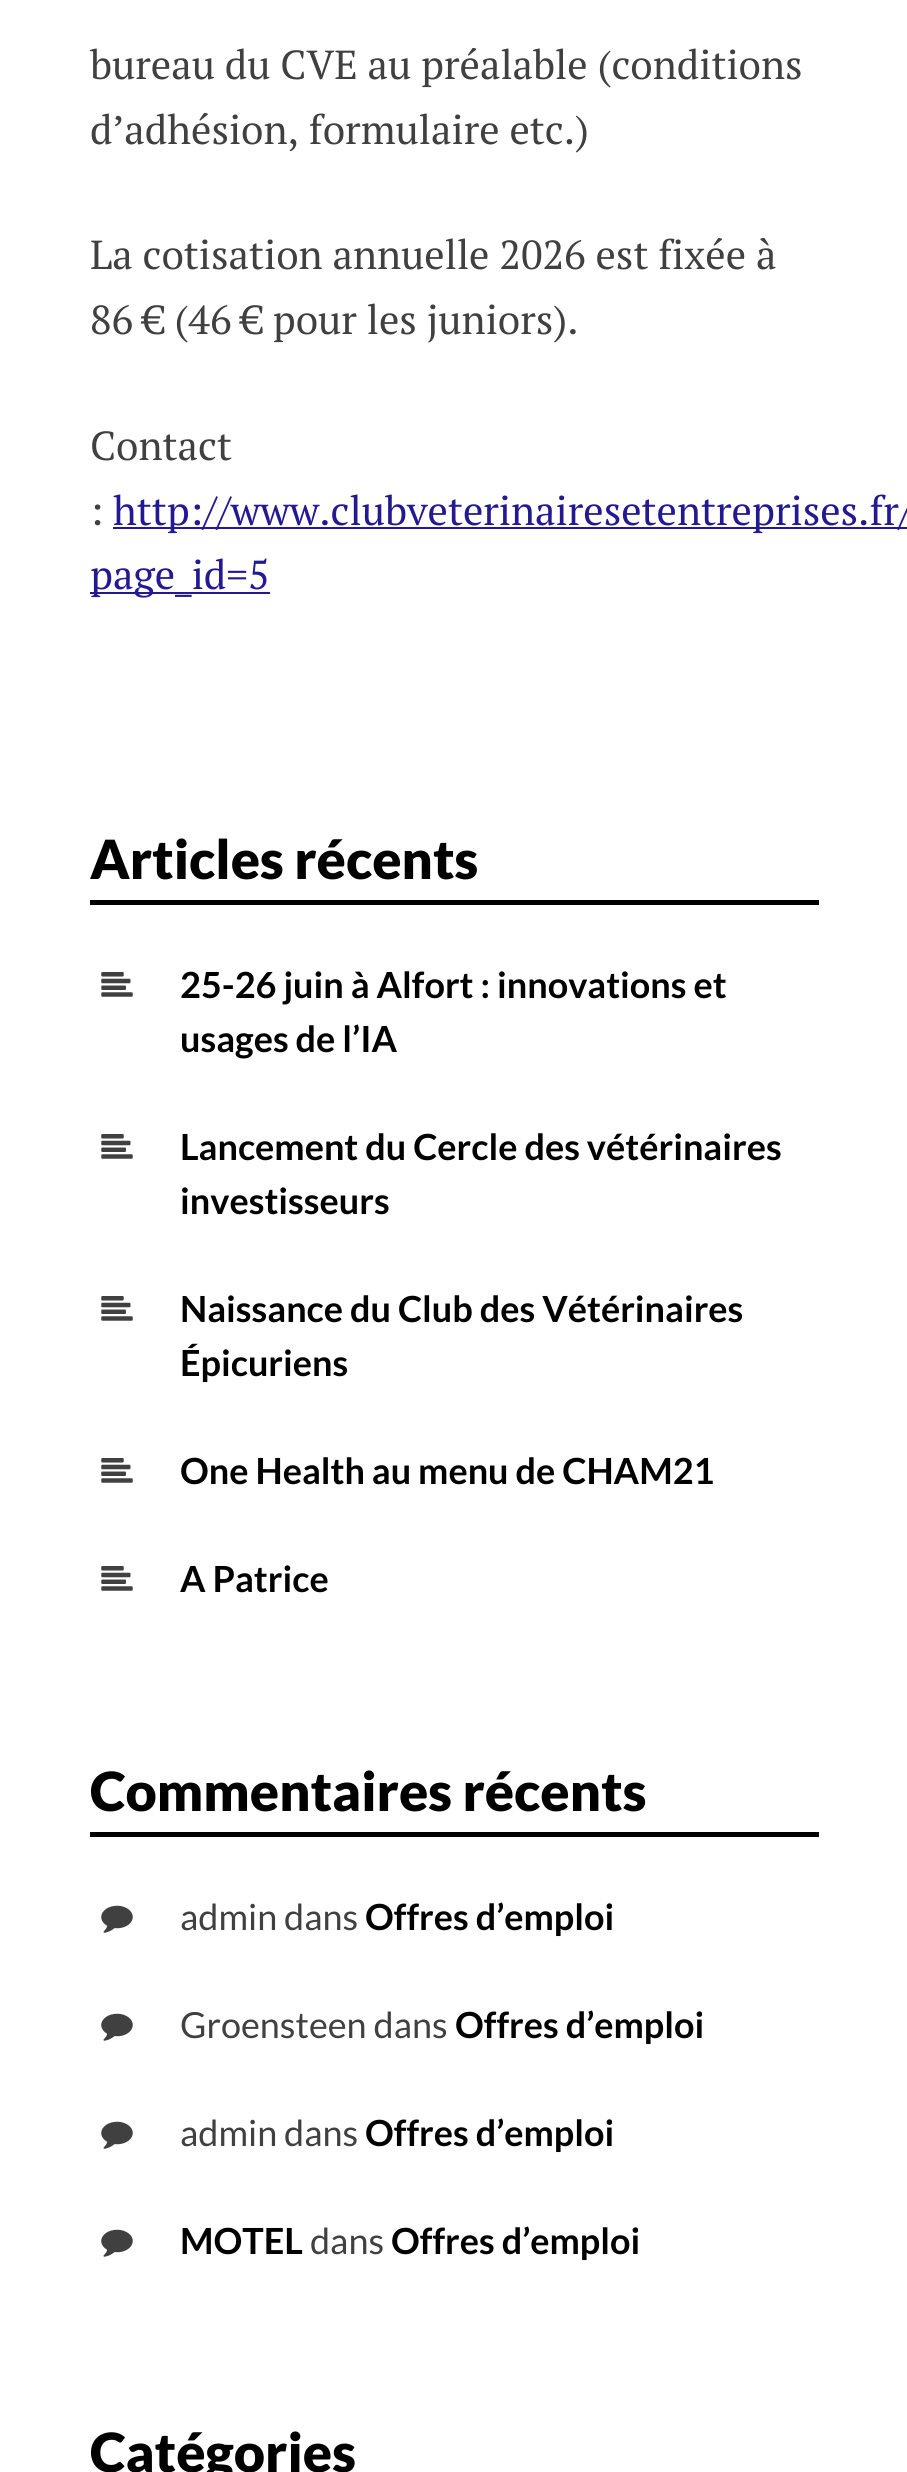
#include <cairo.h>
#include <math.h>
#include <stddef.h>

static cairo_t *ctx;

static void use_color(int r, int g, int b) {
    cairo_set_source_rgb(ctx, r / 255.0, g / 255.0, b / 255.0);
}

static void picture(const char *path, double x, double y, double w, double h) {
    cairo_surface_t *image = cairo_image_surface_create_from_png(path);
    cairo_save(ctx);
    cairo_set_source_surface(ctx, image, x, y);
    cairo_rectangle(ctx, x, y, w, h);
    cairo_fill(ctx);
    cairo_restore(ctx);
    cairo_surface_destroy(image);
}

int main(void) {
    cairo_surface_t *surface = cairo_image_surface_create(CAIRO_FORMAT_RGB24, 907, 2472);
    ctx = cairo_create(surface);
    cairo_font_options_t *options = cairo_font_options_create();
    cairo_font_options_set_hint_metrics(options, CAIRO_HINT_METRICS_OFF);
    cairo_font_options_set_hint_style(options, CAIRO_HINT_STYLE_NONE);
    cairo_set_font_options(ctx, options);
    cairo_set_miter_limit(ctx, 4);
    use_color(255, 255, 255);
    cairo_paint(ctx);
    cairo_select_font_face(ctx, "PT Serif", CAIRO_FONT_SLANT_NORMAL, CAIRO_FONT_WEIGHT_NORMAL);
    cairo_set_font_size(ctx, 40.5);
    use_color(64, 64, 64);
    cairo_move_to(ctx, 90, 79);
    cairo_show_text(ctx, "bureau du CVE au préalable (conditions");
    cairo_move_to(ctx, 90, 144);
    cairo_show_text(ctx, "d’adhésion, formulaire etc.)");
    cairo_move_to(ctx, 90, 269);
    cairo_show_text(ctx, "La cotisation annuelle 2026 est fixée à");
    cairo_move_to(ctx, 90, 334);
    cairo_show_text(ctx, "86 € (46 € pour les juniors).");
    cairo_move_to(ctx, 90, 460);
    cairo_show_text(ctx, "Contact");
    cairo_move_to(ctx, 90, 525);
    cairo_show_text(ctx, ":");
    use_color(35, 25, 147);
    cairo_rectangle(ctx, 113, 527, 794, 2);
    cairo_fill(ctx);
    cairo_move_to(ctx, 113, 525);
    cairo_show_text(ctx, "http://www.clubveterinairesetentreprises.fr/");
    cairo_rectangle(ctx, 90, 592, 180, 2);
    cairo_fill(ctx);
    cairo_move_to(ctx, 90, 589);
    cairo_show_text(ctx, "page_id=5");
    use_color(0, 0, 0);
    cairo_rectangle(ctx, 90, 900, 729, 5);
    cairo_fill(ctx);
    cairo_select_font_face(ctx, "Lato Black", CAIRO_FONT_SLANT_NORMAL, CAIRO_FONT_WEIGHT_NORMAL);
    cairo_set_font_size(ctx, 54);
    cairo_move_to(ctx, 90, 879);
    cairo_show_text(ctx, "Articles récents");
    picture("img1.png", 101, 972, 32, 25);
    cairo_select_font_face(ctx, "Lato", CAIRO_FONT_SLANT_NORMAL, CAIRO_FONT_WEIGHT_BOLD);
    cairo_set_font_size(ctx, 36);
    cairo_move_to(ctx, 180, 998);
    cairo_show_text(ctx, "25-26 juin à Alfort : innovations et");
    cairo_move_to(ctx, 180, 1052);
    cairo_show_text(ctx, "usages de l’IA");
    picture("img1.png", 101, 1134, 32, 25);
    cairo_move_to(ctx, 180, 1160);
    cairo_show_text(ctx, "Lancement du Cercle des vétérinaires");
    cairo_move_to(ctx, 180, 1214);
    cairo_show_text(ctx, "investisseurs");
    picture("img1.png", 101, 1296, 32, 25);
    cairo_move_to(ctx, 180, 1322);
    cairo_show_text(ctx, "Naissance du Club des Vétérinaires");
    cairo_move_to(ctx, 180, 1376);
    cairo_show_text(ctx, "Épicuriens");
    picture("img1.png", 101, 1458, 32, 25);
    cairo_move_to(ctx, 180, 1484);
    cairo_show_text(ctx, "One Health au menu de CHAM21");
    picture("img1.png", 101, 1566, 32, 25);
    cairo_move_to(ctx, 180, 1592);
    cairo_show_text(ctx, "A Patrice");
    cairo_rectangle(ctx, 90, 1832, 729, 5);
    cairo_fill(ctx);
    cairo_select_font_face(ctx, "Lato Black", CAIRO_FONT_SLANT_NORMAL, CAIRO_FONT_WEIGHT_NORMAL);
    cairo_set_font_size(ctx, 54);
    cairo_move_to(ctx, 90, 1811);
    cairo_show_text(ctx, "Commentaires récents");
    picture("img2.png", 101, 1905, 32, 28);
    cairo_select_font_face(ctx, "Lato", CAIRO_FONT_SLANT_NORMAL, CAIRO_FONT_WEIGHT_NORMAL);
    cairo_set_font_size(ctx, 36);
    use_color(64, 64, 64);
    cairo_move_to(ctx, 180, 1930);
    cairo_show_text(ctx, "admin dans");
    cairo_select_font_face(ctx, "Lato", CAIRO_FONT_SLANT_NORMAL, CAIRO_FONT_WEIGHT_BOLD);
    use_color(0, 0, 0);
    cairo_move_to(ctx, 365, 1930);
    cairo_show_text(ctx, "Offres d’emploi");
    picture("img2.png", 101, 2013, 32, 28);
    cairo_select_font_face(ctx, "Lato", CAIRO_FONT_SLANT_NORMAL, CAIRO_FONT_WEIGHT_NORMAL);
    use_color(64, 64, 64);
    cairo_move_to(ctx, 180, 2038);
    cairo_show_text(ctx, "Groensteen dans");
    cairo_select_font_face(ctx, "Lato", CAIRO_FONT_SLANT_NORMAL, CAIRO_FONT_WEIGHT_BOLD);
    use_color(0, 0, 0);
    cairo_move_to(ctx, 455, 2038);
    cairo_show_text(ctx, "Offres d’emploi");
    picture("img2.png", 101, 2121, 32, 28);
    cairo_select_font_face(ctx, "Lato", CAIRO_FONT_SLANT_NORMAL, CAIRO_FONT_WEIGHT_NORMAL);
    use_color(64, 64, 64);
    cairo_move_to(ctx, 180, 2146);
    cairo_show_text(ctx, "admin dans");
    cairo_select_font_face(ctx, "Lato", CAIRO_FONT_SLANT_NORMAL, CAIRO_FONT_WEIGHT_BOLD);
    use_color(0, 0, 0);
    cairo_move_to(ctx, 365, 2146);
    cairo_show_text(ctx, "Offres d’emploi");
    picture("img2.png", 101, 2229, 32, 28);
    cairo_move_to(ctx, 180, 2254);
    cairo_show_text(ctx, "MOTEL");
    cairo_select_font_face(ctx, "Lato", CAIRO_FONT_SLANT_NORMAL, CAIRO_FONT_WEIGHT_NORMAL);
    use_color(64, 64, 64);
    cairo_move_to(ctx, 310, 2254);
    cairo_show_text(ctx, "dans");
    cairo_select_font_face(ctx, "Lato", CAIRO_FONT_SLANT_NORMAL, CAIRO_FONT_WEIGHT_BOLD);
    use_color(0, 0, 0);
    cairo_move_to(ctx, 391, 2254);
    cairo_show_text(ctx, "Offres d’emploi");
    cairo_select_font_face(ctx, "Lato Black", CAIRO_FONT_SLANT_NORMAL, CAIRO_FONT_WEIGHT_NORMAL);
    cairo_set_font_size(ctx, 54);
    cairo_move_to(ctx, 90, 2472);
    cairo_show_text(ctx, "Catégories");
    cairo_surface_write_to_png(surface, "result.png");
    cairo_font_options_destroy(options);
    cairo_destroy(ctx);
    cairo_surface_destroy(surface);
    return 0;
}
